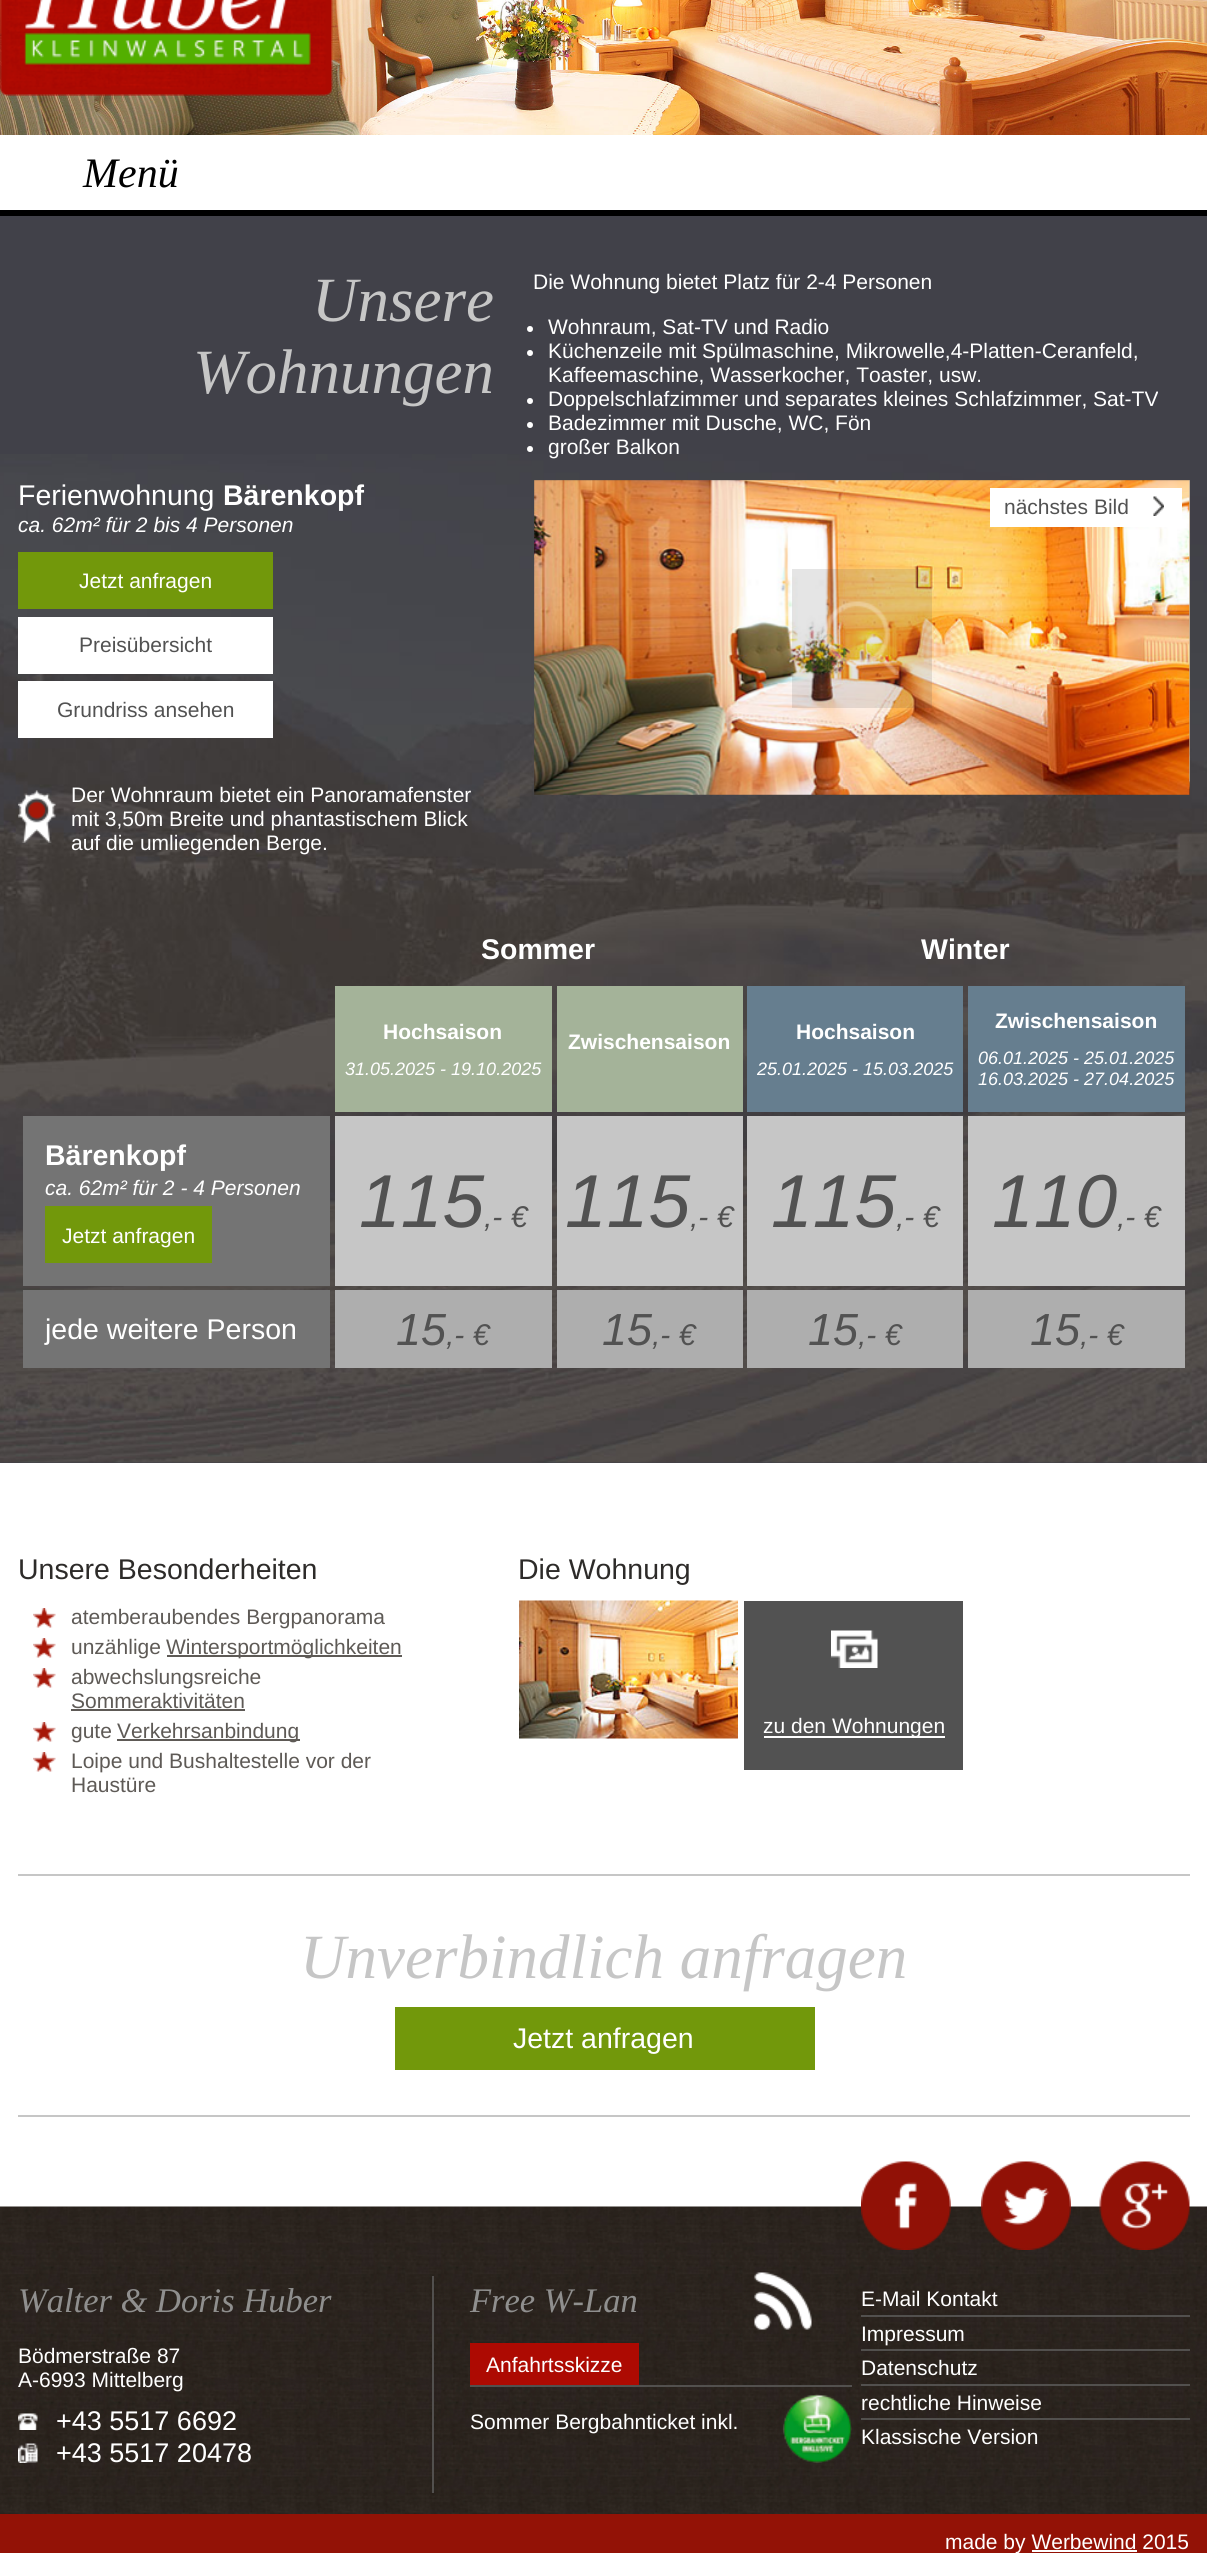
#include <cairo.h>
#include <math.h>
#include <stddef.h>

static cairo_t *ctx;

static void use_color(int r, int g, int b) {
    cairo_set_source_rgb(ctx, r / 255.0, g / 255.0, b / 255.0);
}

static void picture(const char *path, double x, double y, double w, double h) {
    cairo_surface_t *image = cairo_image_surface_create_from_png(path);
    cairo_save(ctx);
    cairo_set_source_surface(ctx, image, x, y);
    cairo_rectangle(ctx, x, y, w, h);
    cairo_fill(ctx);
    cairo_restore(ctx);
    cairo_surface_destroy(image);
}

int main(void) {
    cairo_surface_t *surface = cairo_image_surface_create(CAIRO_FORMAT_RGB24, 1207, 2553);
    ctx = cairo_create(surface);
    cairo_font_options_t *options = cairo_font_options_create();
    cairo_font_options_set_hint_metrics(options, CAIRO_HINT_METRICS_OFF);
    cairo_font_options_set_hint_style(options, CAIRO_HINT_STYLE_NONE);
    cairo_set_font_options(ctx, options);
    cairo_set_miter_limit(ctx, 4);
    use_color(255, 255, 255);
    cairo_paint(ctx);
    picture("img1.png", 0, 0, 1207, 135);
    picture("img2.png", 0, 0, 333, 96);
    use_color(0, 0, 0);
    cairo_rectangle(ctx, 0, 210, 1207, 6);
    cairo_fill(ctx);
    cairo_select_font_face(ctx, "Liberation Serif", CAIRO_FONT_SLANT_ITALIC, CAIRO_FONT_WEIGHT_NORMAL);
    cairo_set_font_size(ctx, 42);
    cairo_move_to(ctx, 83, 187);
    cairo_show_text(ctx, "Menü");
    use_color(65, 65, 73);
    cairo_rectangle(ctx, 0, 216, 1207, 1247);
    cairo_fill(ctx);
    picture("img3.png", 0, 454, 1207, 1009);
    cairo_set_font_size(ctx, 63);
    use_color(198, 198, 198);
    cairo_move_to(ctx, 312, 321);
    cairo_show_text(ctx, "Unsere");
    cairo_move_to(ctx, 193, 393);
    cairo_show_text(ctx, "Wohnungen");
    cairo_select_font_face(ctx, "Liberation Sans", CAIRO_FONT_SLANT_NORMAL, CAIRO_FONT_WEIGHT_NORMAL);
    cairo_set_font_size(ctx, 21);
    use_color(255, 255, 255);
    cairo_move_to(ctx, 533, 289);
    cairo_show_text(ctx, "Die Wohnung bietet Platz für 2-4 Personen");
    cairo_new_path(ctx);
    cairo_arc(ctx, 530, 329, 3, 0, 2 * M_PI);
    cairo_fill(ctx);
    cairo_move_to(ctx, 548, 334);
    cairo_show_text(ctx, "Wohnraum, Sat-TV und Radio");
    cairo_new_path(ctx);
    cairo_arc(ctx, 530, 353, 3, 0, 2 * M_PI);
    cairo_fill(ctx);
    cairo_move_to(ctx, 548, 358);
    cairo_show_text(ctx, "Küchenzeile mit Spülmaschine, Mikrowelle,4-Platten-Ceranfeld,");
    cairo_move_to(ctx, 548, 382);
    cairo_show_text(ctx, "Kaffeemaschine, Wasserkocher, Toaster, usw.");
    cairo_new_path(ctx);
    cairo_arc(ctx, 530, 401, 3, 0, 2 * M_PI);
    cairo_fill(ctx);
    cairo_move_to(ctx, 548, 406);
    cairo_show_text(ctx, "Doppelschlafzimmer und separates kleines Schlafzimmer, Sat-TV");
    cairo_new_path(ctx);
    cairo_arc(ctx, 530, 425, 3, 0, 2 * M_PI);
    cairo_fill(ctx);
    cairo_move_to(ctx, 548, 430);
    cairo_show_text(ctx, "Badezimmer mit Dusche, WC, Fön");
    cairo_new_path(ctx);
    cairo_arc(ctx, 530, 449, 3, 0, 2 * M_PI);
    cairo_fill(ctx);
    cairo_move_to(ctx, 548, 454);
    cairo_show_text(ctx, "großer Balkon");
    cairo_set_font_size(ctx, 28.5);
    cairo_move_to(ctx, 18, 505);
    cairo_show_text(ctx, "Ferienwohnung");
    cairo_select_font_face(ctx, "Liberation Sans", CAIRO_FONT_SLANT_NORMAL, CAIRO_FONT_WEIGHT_BOLD);
    cairo_move_to(ctx, 223, 505);
    cairo_show_text(ctx, "Bärenkopf");
    cairo_select_font_face(ctx, "Liberation Sans", CAIRO_FONT_SLANT_ITALIC, CAIRO_FONT_WEIGHT_NORMAL);
    cairo_set_font_size(ctx, 21);
    cairo_move_to(ctx, 18, 532);
    cairo_show_text(ctx, "ca. 62m² für 2 bis 4 Personen");
    use_color(114, 152, 11);
    cairo_rectangle(ctx, 18, 552, 255, 57);
    cairo_fill(ctx);
    cairo_select_font_face(ctx, "Liberation Sans", CAIRO_FONT_SLANT_NORMAL, CAIRO_FONT_WEIGHT_NORMAL);
    use_color(255, 255, 255);
    cairo_move_to(ctx, 79, 588);
    cairo_show_text(ctx, "Jetzt anfragen");
    cairo_rectangle(ctx, 18, 617, 255, 57);
    cairo_fill(ctx);
    use_color(82, 82, 82);
    cairo_move_to(ctx, 79, 652);
    cairo_show_text(ctx, "Preisübersicht");
    use_color(255, 255, 255);
    cairo_rectangle(ctx, 18, 681, 255, 57);
    cairo_fill(ctx);
    use_color(82, 82, 82);
    cairo_move_to(ctx, 57, 717);
    cairo_show_text(ctx, "Grundriss ansehen");
    picture("img4.png", 18, 790, 38, 53);
    use_color(255, 255, 255);
    cairo_move_to(ctx, 71, 802);
    cairo_show_text(ctx, "Der Wohnraum bietet ein Panoramafenster");
    cairo_move_to(ctx, 71, 826);
    cairo_show_text(ctx, "mit 3,50m Breite und phantastischem Blick");
    cairo_move_to(ctx, 71, 850);
    cairo_show_text(ctx, "auf die umliegenden Berge.");
    picture("img5.png", 534, 480, 656, 315);
    cairo_set_source_rgba(ctx, 0.322, 0.322, 0.322, 0.15);
    cairo_rectangle(ctx, 792, 569, 140, 139);
    cairo_fill(ctx);
    picture("img6.png", 824, 601, 75, 74);
    picture("img7.png", 1189, 480, 1, 315);
    use_color(255, 255, 255);
    cairo_rectangle(ctx, 990, 488, 192, 39);
    cairo_fill(ctx);
    use_color(82, 82, 82);
    cairo_move_to(ctx, 1004, 514);
    cairo_show_text(ctx, "nächstes Bild");
    picture("img8.png", 1153, 496, 11, 20);
    cairo_select_font_face(ctx, "Liberation Sans", CAIRO_FONT_SLANT_NORMAL, CAIRO_FONT_WEIGHT_BOLD);
    cairo_set_font_size(ctx, 28.5);
    use_color(255, 255, 255);
    cairo_move_to(ctx, 481, 959);
    cairo_show_text(ctx, "Sommer");
    cairo_move_to(ctx, 921, 959);
    cairo_show_text(ctx, "Winter");
    use_color(164, 179, 153);
    cairo_rectangle(ctx, 335, 986, 217, 126);
    cairo_fill(ctx);
    cairo_set_font_size(ctx, 21);
    use_color(255, 255, 255);
    cairo_move_to(ctx, 383, 1039);
    cairo_show_text(ctx, "Hochsaison");
    cairo_select_font_face(ctx, "Liberation Sans", CAIRO_FONT_SLANT_ITALIC, CAIRO_FONT_WEIGHT_NORMAL);
    cairo_set_font_size(ctx, 18);
    cairo_move_to(ctx, 345, 1075);
    cairo_show_text(ctx, "31.05.2025 - 19.10.2025");
    use_color(164, 179, 153);
    cairo_rectangle(ctx, 557, 986, 186, 126);
    cairo_fill(ctx);
    cairo_select_font_face(ctx, "Liberation Sans", CAIRO_FONT_SLANT_NORMAL, CAIRO_FONT_WEIGHT_BOLD);
    cairo_set_font_size(ctx, 21);
    use_color(255, 255, 255);
    cairo_move_to(ctx, 568, 1049);
    cairo_show_text(ctx, "Zwischensaison");
    use_color(102, 126, 143);
    cairo_rectangle(ctx, 747, 986, 216, 126);
    cairo_fill(ctx);
    use_color(255, 255, 255);
    cairo_move_to(ctx, 796, 1039);
    cairo_show_text(ctx, "Hochsaison");
    cairo_select_font_face(ctx, "Liberation Sans", CAIRO_FONT_SLANT_ITALIC, CAIRO_FONT_WEIGHT_NORMAL);
    cairo_set_font_size(ctx, 18);
    cairo_move_to(ctx, 757, 1075);
    cairo_show_text(ctx, "25.01.2025 - 15.03.2025");
    use_color(102, 126, 143);
    cairo_rectangle(ctx, 968, 986, 217, 126);
    cairo_fill(ctx);
    cairo_select_font_face(ctx, "Liberation Sans", CAIRO_FONT_SLANT_NORMAL, CAIRO_FONT_WEIGHT_BOLD);
    cairo_set_font_size(ctx, 21);
    use_color(255, 255, 255);
    cairo_move_to(ctx, 995, 1028);
    cairo_show_text(ctx, "Zwischensaison");
    cairo_select_font_face(ctx, "Liberation Sans", CAIRO_FONT_SLANT_ITALIC, CAIRO_FONT_WEIGHT_NORMAL);
    cairo_set_font_size(ctx, 18);
    cairo_move_to(ctx, 978, 1064);
    cairo_show_text(ctx, "06.01.2025 - 25.01.2025");
    cairo_move_to(ctx, 978, 1085);
    cairo_show_text(ctx, "16.03.2025 - 27.04.2025");
    use_color(116, 116, 116);
    cairo_rectangle(ctx, 23, 1116, 307, 170);
    cairo_fill(ctx);
    cairo_select_font_face(ctx, "Liberation Sans", CAIRO_FONT_SLANT_NORMAL, CAIRO_FONT_WEIGHT_BOLD);
    cairo_set_font_size(ctx, 28.5);
    use_color(255, 255, 255);
    cairo_move_to(ctx, 45, 1165);
    cairo_show_text(ctx, "Bärenkopf");
    cairo_select_font_face(ctx, "Liberation Sans", CAIRO_FONT_SLANT_ITALIC, CAIRO_FONT_WEIGHT_NORMAL);
    cairo_set_font_size(ctx, 21);
    cairo_move_to(ctx, 45, 1195);
    cairo_show_text(ctx, "ca. 62m² für 2 - 4 Personen");
    use_color(114, 152, 11);
    cairo_rectangle(ctx, 45, 1206, 167, 57);
    cairo_fill(ctx);
    cairo_select_font_face(ctx, "Liberation Sans", CAIRO_FONT_SLANT_NORMAL, CAIRO_FONT_WEIGHT_NORMAL);
    use_color(255, 255, 255);
    cairo_move_to(ctx, 62, 1243);
    cairo_show_text(ctx, "Jetzt anfragen");
    use_color(198, 198, 198);
    cairo_rectangle(ctx, 335, 1116, 217, 170);
    cairo_fill(ctx);
    cairo_select_font_face(ctx, "Liberation Sans", CAIRO_FONT_SLANT_ITALIC, CAIRO_FONT_WEIGHT_NORMAL);
    cairo_set_font_size(ctx, 75);
    use_color(82, 82, 82);
    cairo_move_to(ctx, 359, 1227);
    cairo_show_text(ctx, "115");
    cairo_set_font_size(ctx, 30);
    cairo_move_to(ctx, 484, 1227);
    cairo_show_text(ctx, ",- €");
    use_color(198, 198, 198);
    cairo_rectangle(ctx, 557, 1116, 186, 170);
    cairo_fill(ctx);
    cairo_set_font_size(ctx, 75);
    use_color(82, 82, 82);
    cairo_move_to(ctx, 565, 1227);
    cairo_show_text(ctx, "115");
    cairo_set_font_size(ctx, 30);
    cairo_move_to(ctx, 690, 1227);
    cairo_show_text(ctx, ",- €");
    use_color(198, 198, 198);
    cairo_rectangle(ctx, 747, 1116, 216, 170);
    cairo_fill(ctx);
    cairo_set_font_size(ctx, 75);
    use_color(82, 82, 82);
    cairo_move_to(ctx, 771, 1227);
    cairo_show_text(ctx, "115");
    cairo_set_font_size(ctx, 30);
    cairo_move_to(ctx, 896, 1227);
    cairo_show_text(ctx, ",- €");
    use_color(198, 198, 198);
    cairo_rectangle(ctx, 968, 1116, 217, 170);
    cairo_fill(ctx);
    cairo_set_font_size(ctx, 75);
    use_color(82, 82, 82);
    cairo_move_to(ctx, 992, 1227);
    cairo_show_text(ctx, "110");
    cairo_set_font_size(ctx, 30);
    cairo_move_to(ctx, 1117, 1227);
    cairo_show_text(ctx, ",- €");
    use_color(116, 116, 116);
    cairo_rectangle(ctx, 23, 1290, 307, 78);
    cairo_fill(ctx);
    cairo_select_font_face(ctx, "Liberation Sans", CAIRO_FONT_SLANT_NORMAL, CAIRO_FONT_WEIGHT_NORMAL);
    cairo_set_font_size(ctx, 28.5);
    use_color(255, 255, 255);
    cairo_move_to(ctx, 45, 1339);
    cairo_show_text(ctx, "jede weitere Person");
    use_color(174, 174, 174);
    cairo_rectangle(ctx, 335, 1290, 217, 78);
    cairo_fill(ctx);
    cairo_select_font_face(ctx, "Liberation Sans", CAIRO_FONT_SLANT_ITALIC, CAIRO_FONT_WEIGHT_NORMAL);
    cairo_set_font_size(ctx, 45);
    use_color(82, 82, 82);
    cairo_move_to(ctx, 396, 1345);
    cairo_show_text(ctx, "15");
    cairo_set_font_size(ctx, 30);
    cairo_move_to(ctx, 446, 1345);
    cairo_show_text(ctx, ",- €");
    use_color(174, 174, 174);
    cairo_rectangle(ctx, 557, 1290, 186, 78);
    cairo_fill(ctx);
    cairo_set_font_size(ctx, 45);
    use_color(82, 82, 82);
    cairo_move_to(ctx, 602, 1345);
    cairo_show_text(ctx, "15");
    cairo_set_font_size(ctx, 30);
    cairo_move_to(ctx, 652, 1345);
    cairo_show_text(ctx, ",- €");
    use_color(174, 174, 174);
    cairo_rectangle(ctx, 747, 1290, 216, 78);
    cairo_fill(ctx);
    cairo_set_font_size(ctx, 45);
    use_color(82, 82, 82);
    cairo_move_to(ctx, 808, 1345);
    cairo_show_text(ctx, "15");
    cairo_set_font_size(ctx, 30);
    cairo_move_to(ctx, 858, 1345);
    cairo_show_text(ctx, ",- €");
    use_color(174, 174, 174);
    cairo_rectangle(ctx, 968, 1290, 217, 78);
    cairo_fill(ctx);
    cairo_set_font_size(ctx, 45);
    use_color(82, 82, 82);
    cairo_move_to(ctx, 1030, 1345);
    cairo_show_text(ctx, "15");
    cairo_set_font_size(ctx, 30);
    cairo_move_to(ctx, 1080, 1345);
    cairo_show_text(ctx, ",- €");
    cairo_select_font_face(ctx, "Liberation Sans", CAIRO_FONT_SLANT_NORMAL, CAIRO_FONT_WEIGHT_NORMAL);
    cairo_set_font_size(ctx, 28.5);
    use_color(45, 43, 41);
    cairo_move_to(ctx, 18, 1579);
    cairo_show_text(ctx, "Unsere Besonderheiten");
    picture("img9.png", 33, 1608, 23, 20);
    cairo_set_font_size(ctx, 21);
    use_color(94, 90, 86);
    cairo_move_to(ctx, 71, 1624);
    cairo_show_text(ctx, "atemberaubendes Bergpanorama");
    picture("img9.png", 33, 1638, 23, 20);
    cairo_move_to(ctx, 71, 1654);
    cairo_show_text(ctx, "unzählige");
    cairo_rectangle(ctx, 167, 1655, 235, 2);
    cairo_fill(ctx);
    cairo_move_to(ctx, 166, 1654);
    cairo_show_text(ctx, "Wintersportmöglichkeiten");
    picture("img9.png", 33, 1668, 23, 20);
    cairo_move_to(ctx, 71, 1684);
    cairo_show_text(ctx, "abwechslungsreiche");
    cairo_move_to(ctx, 71, 1708);
    cairo_show_text(ctx, "Sommeraktivitäten");
    cairo_rectangle(ctx, 71, 1709, 174, 2);
    cairo_fill(ctx);
    picture("img9.png", 33, 1722, 23, 20);
    cairo_move_to(ctx, 71, 1738);
    cairo_show_text(ctx, "gute");
    cairo_rectangle(ctx, 117, 1739, 183, 2);
    cairo_fill(ctx);
    cairo_move_to(ctx, 117, 1738);
    cairo_show_text(ctx, "Verkehrsanbindung");
    picture("img9.png", 33, 1752, 23, 20);
    cairo_move_to(ctx, 71, 1768);
    cairo_show_text(ctx, "Loipe und Bushaltestelle vor der");
    cairo_move_to(ctx, 71, 1792);
    cairo_show_text(ctx, "Haustüre");
    cairo_set_font_size(ctx, 28.5);
    use_color(45, 43, 41);
    cairo_move_to(ctx, 518, 1579);
    cairo_show_text(ctx, "Die Wohnung");
    picture("img10.png", 519, 1600, 219, 139);
    use_color(82, 82, 82);
    cairo_rectangle(ctx, 744, 1601, 219, 169);
    cairo_fill(ctx);
    picture("img11.png", 831, 1630, 47, 38);
    use_color(255, 255, 255);
    cairo_rectangle(ctx, 764, 1736, 181, 2);
    cairo_fill(ctx);
    cairo_set_font_size(ctx, 21);
    cairo_move_to(ctx, 763, 1733);
    cairo_show_text(ctx, "zu den Wohnungen");
    use_color(198, 198, 198);
    cairo_rectangle(ctx, 18, 1874, 1172, 2);
    cairo_fill(ctx);
    cairo_rectangle(ctx, 18, 2115, 1172, 2);
    cairo_fill(ctx);
    cairo_select_font_face(ctx, "Liberation Serif", CAIRO_FONT_SLANT_ITALIC, CAIRO_FONT_WEIGHT_NORMAL);
    cairo_set_font_size(ctx, 63);
    cairo_move_to(ctx, 300, 1978);
    cairo_show_text(ctx, "Unverbindlich anfragen");
    use_color(114, 152, 11);
    cairo_rectangle(ctx, 395, 2007, 420, 63);
    cairo_fill(ctx);
    cairo_select_font_face(ctx, "Liberation Sans", CAIRO_FONT_SLANT_NORMAL, CAIRO_FONT_WEIGHT_NORMAL);
    cairo_set_font_size(ctx, 28.5);
    use_color(255, 255, 255);
    cairo_move_to(ctx, 513, 2048);
    cairo_show_text(ctx, "Jetzt anfragen");
    picture("img12.png", 0, 2206, 1207, 308);
    cairo_select_font_face(ctx, "Liberation Serif", CAIRO_FONT_SLANT_ITALIC, CAIRO_FONT_WEIGHT_NORMAL);
    cairo_set_font_size(ctx, 34.5);
    use_color(143, 143, 142);
    cairo_move_to(ctx, 18, 2312);
    cairo_show_text(ctx, "Walter & Doris Huber");
    cairo_select_font_face(ctx, "Liberation Sans", CAIRO_FONT_SLANT_NORMAL, CAIRO_FONT_WEIGHT_NORMAL);
    cairo_set_font_size(ctx, 21);
    use_color(255, 255, 255);
    cairo_move_to(ctx, 18, 2363);
    cairo_show_text(ctx, "Bödmerstraße 87");
    cairo_move_to(ctx, 18, 2387);
    cairo_show_text(ctx, "A-6993 Mittelberg");
    picture("img13.png", 18, 2413, 20, 17);
    cairo_set_font_size(ctx, 27);
    cairo_move_to(ctx, 56, 2430);
    cairo_show_text(ctx, "+43 5517 6692");
    picture("img14.png", 18, 2443, 20, 20);
    cairo_move_to(ctx, 56, 2462);
    cairo_show_text(ctx, "+43 5517 20478");
    use_color(82, 80, 78);
    cairo_rectangle(ctx, 432, 2276, 2, 217);
    cairo_fill(ctx);
    cairo_select_font_face(ctx, "Liberation Serif", CAIRO_FONT_SLANT_ITALIC, CAIRO_FONT_WEIGHT_NORMAL);
    cairo_set_font_size(ctx, 34.5);
    use_color(143, 143, 142);
    cairo_move_to(ctx, 470, 2312);
    cairo_show_text(ctx, "Free W-Lan");
    picture("img15.png", 754, 2272, 58, 58);
    use_color(173, 10, 2);
    cairo_rectangle(ctx, 470, 2343, 169, 42);
    cairo_fill(ctx);
    cairo_select_font_face(ctx, "Liberation Sans", CAIRO_FONT_SLANT_NORMAL, CAIRO_FONT_WEIGHT_NORMAL);
    cairo_set_font_size(ctx, 21);
    use_color(255, 255, 255);
    cairo_move_to(ctx, 486, 2372);
    cairo_show_text(ctx, "Anfahrtsskizze");
    use_color(82, 80, 78);
    cairo_rectangle(ctx, 470, 2385, 382, 2);
    cairo_fill(ctx);
    use_color(255, 255, 255);
    cairo_move_to(ctx, 470, 2429);
    cairo_show_text(ctx, "Sommer Bergbahnticket inkl.");
    picture("img16.png", 783, 2394, 69, 69);
    picture("img17.png", 861, 2161, 90, 89);
    picture("img18.png", 981, 2161, 90, 89);
    picture("img19.png", 1099, 2161, 91, 89);
    cairo_move_to(ctx, 861, 2306);
    cairo_show_text(ctx, "E-Mail Kontakt");
    use_color(82, 80, 78);
    cairo_rectangle(ctx, 861, 2315, 329, 2);
    cairo_fill(ctx);
    use_color(255, 255, 255);
    cairo_move_to(ctx, 861, 2341);
    cairo_show_text(ctx, "Impressum");
    use_color(82, 80, 78);
    cairo_rectangle(ctx, 861, 2349, 329, 2);
    cairo_fill(ctx);
    use_color(255, 255, 255);
    cairo_move_to(ctx, 861, 2375);
    cairo_show_text(ctx, "Datenschutz");
    use_color(82, 80, 78);
    cairo_rectangle(ctx, 861, 2384, 329, 2);
    cairo_fill(ctx);
    use_color(255, 255, 255);
    cairo_move_to(ctx, 861, 2410);
    cairo_show_text(ctx, "rechtliche Hinweise");
    use_color(82, 80, 78);
    cairo_rectangle(ctx, 861, 2418, 329, 2);
    cairo_fill(ctx);
    use_color(255, 255, 255);
    cairo_move_to(ctx, 861, 2444);
    cairo_show_text(ctx, "Klassische Version");
    use_color(147, 18, 6);
    cairo_rectangle(ctx, 0, 2514, 1207, 39);
    cairo_fill(ctx);
    use_color(255, 255, 255);
    cairo_move_to(ctx, 945, 2549);
    cairo_show_text(ctx, "made by Werbewind 2015");
    cairo_rectangle(ctx, 1032, 2550, 105, 2);
    cairo_fill(ctx);
    cairo_surface_write_to_png(surface, "result.png");
    cairo_font_options_destroy(options);
    cairo_destroy(ctx);
    cairo_surface_destroy(surface);
    return 0;
}
